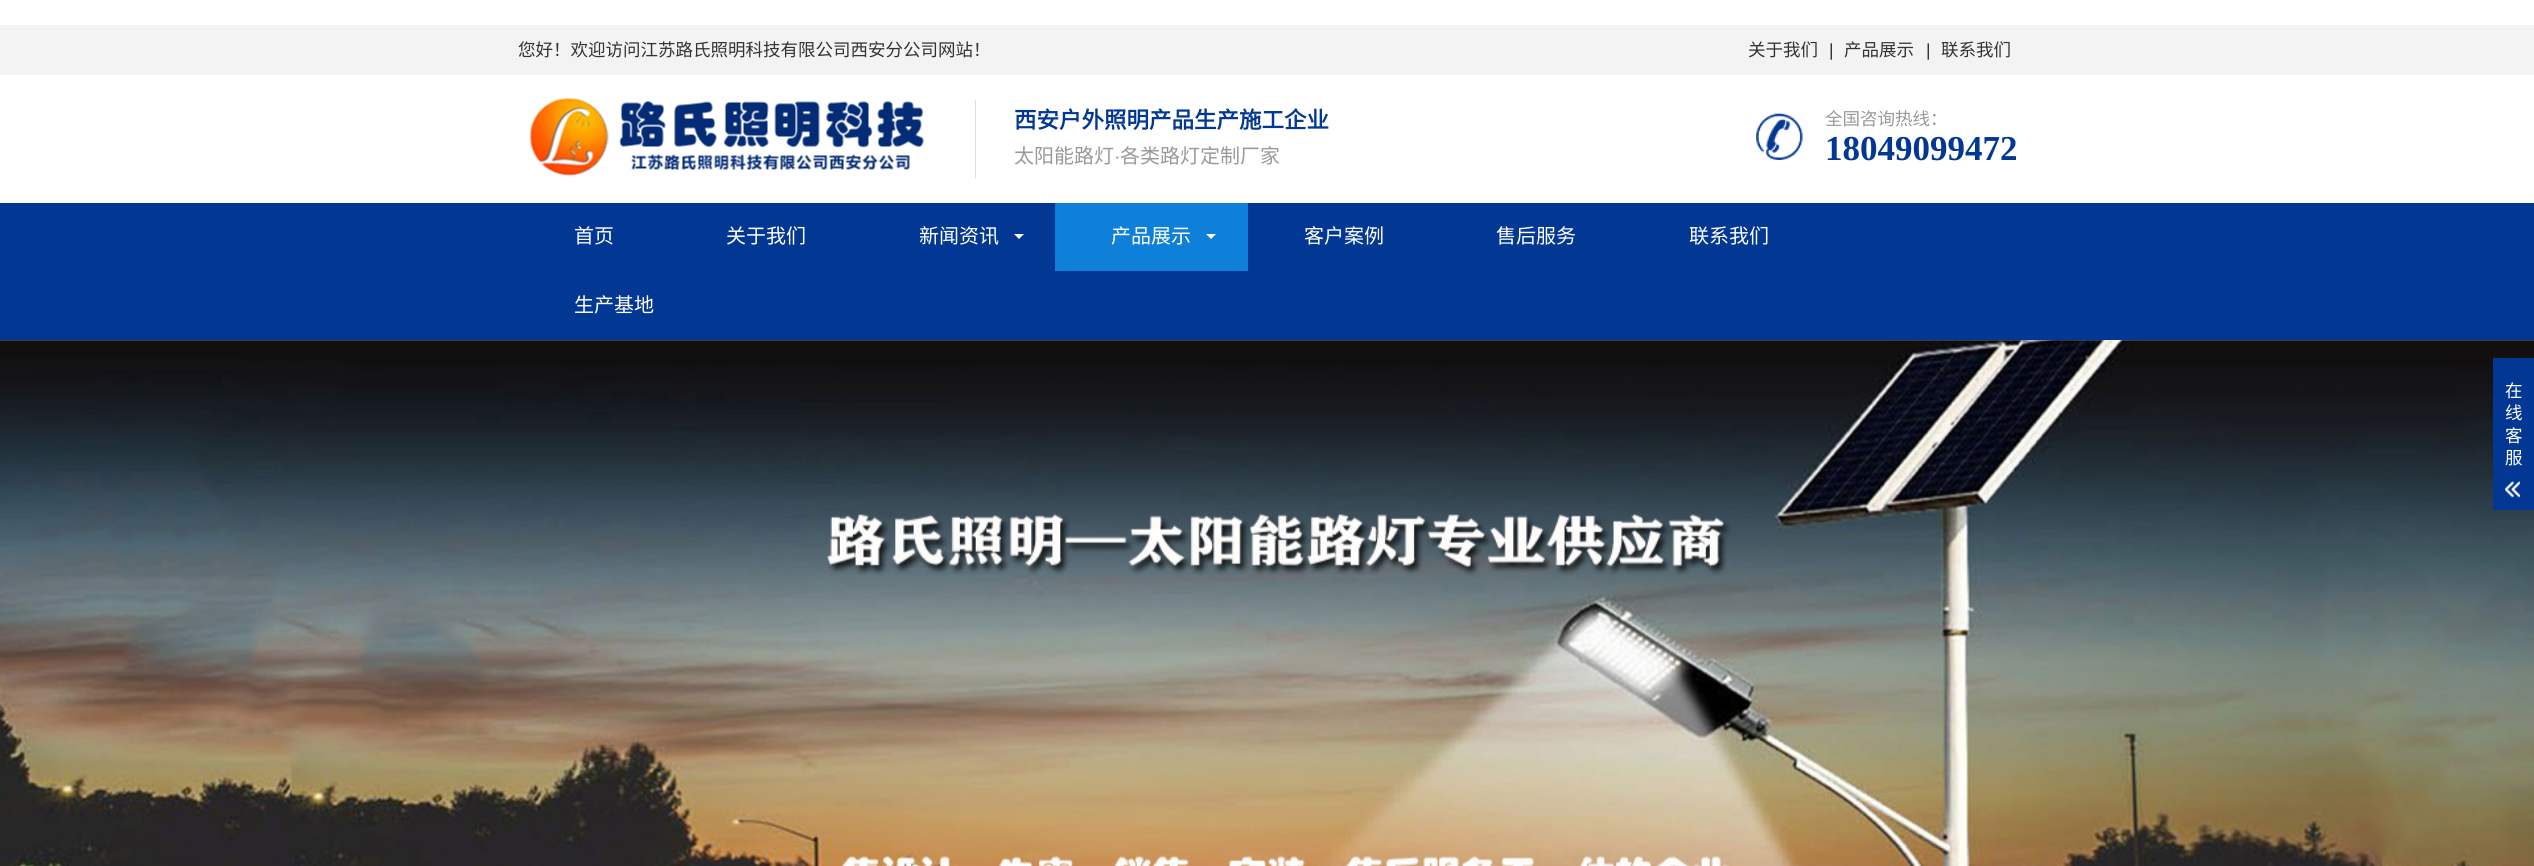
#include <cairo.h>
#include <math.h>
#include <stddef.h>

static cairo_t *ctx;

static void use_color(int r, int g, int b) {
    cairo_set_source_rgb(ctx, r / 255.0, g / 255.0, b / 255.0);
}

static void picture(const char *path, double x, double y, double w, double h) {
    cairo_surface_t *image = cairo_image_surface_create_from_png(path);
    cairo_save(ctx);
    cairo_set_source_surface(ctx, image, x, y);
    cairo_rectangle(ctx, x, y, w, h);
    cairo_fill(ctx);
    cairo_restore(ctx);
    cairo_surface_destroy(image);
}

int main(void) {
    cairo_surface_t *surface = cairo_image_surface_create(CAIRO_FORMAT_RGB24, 2534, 866);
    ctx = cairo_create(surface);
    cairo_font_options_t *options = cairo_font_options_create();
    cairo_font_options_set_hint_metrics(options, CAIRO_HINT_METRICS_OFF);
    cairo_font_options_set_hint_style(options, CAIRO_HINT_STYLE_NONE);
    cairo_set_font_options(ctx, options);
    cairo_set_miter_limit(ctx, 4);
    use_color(255, 255, 255);
    cairo_paint(ctx);
    use_color(244, 243, 243);
    cairo_rectangle(ctx, 0, 25, 2534, 50);
    cairo_fill(ctx);
    cairo_select_font_face(ctx, "Noto Sans CJK SC", CAIRO_FONT_SLANT_NORMAL, CAIRO_FONT_WEIGHT_NORMAL);
    cairo_set_font_size(ctx, 17.5);
    use_color(51, 51, 51);
    cairo_move_to(ctx, 518, 56);
    cairo_show_text(ctx, "您好！欢迎访问江苏路氏照明科技有限公司西安分公司网站！");
    cairo_move_to(ctx, 1748, 56);
    cairo_show_text(ctx, "关于我们");
    cairo_select_font_face(ctx, "Liberation Sans", CAIRO_FONT_SLANT_NORMAL, CAIRO_FONT_WEIGHT_NORMAL);
    cairo_move_to(ctx, 1829, 56);
    cairo_show_text(ctx, "|");
    cairo_select_font_face(ctx, "Noto Sans CJK SC", CAIRO_FONT_SLANT_NORMAL, CAIRO_FONT_WEIGHT_NORMAL);
    cairo_move_to(ctx, 1844, 56);
    cairo_show_text(ctx, "产品展示");
    cairo_select_font_face(ctx, "Liberation Sans", CAIRO_FONT_SLANT_NORMAL, CAIRO_FONT_WEIGHT_NORMAL);
    cairo_move_to(ctx, 1926, 56);
    cairo_show_text(ctx, "|");
    cairo_select_font_face(ctx, "Noto Sans CJK SC", CAIRO_FONT_SLANT_NORMAL, CAIRO_FONT_WEIGHT_NORMAL);
    cairo_move_to(ctx, 1941, 56);
    cairo_show_text(ctx, "联系我们");
    picture("img1.png", 530, 98, 394, 79);
    use_color(221, 221, 221);
    cairo_rectangle(ctx, 975, 100, 1, 78);
    cairo_fill(ctx);
    cairo_select_font_face(ctx, "Noto Sans CJK SC", CAIRO_FONT_SLANT_NORMAL, CAIRO_FONT_WEIGHT_BOLD);
    cairo_set_font_size(ctx, 22.5);
    use_color(2, 55, 147);
    cairo_move_to(ctx, 1014, 128);
    cairo_show_text(ctx, "西安户外照明产品生产施工企业");
    cairo_select_font_face(ctx, "Noto Sans CJK SC", CAIRO_FONT_SLANT_NORMAL, CAIRO_FONT_WEIGHT_NORMAL);
    cairo_set_font_size(ctx, 20);
    use_color(153, 153, 153);
    cairo_move_to(ctx, 1014, 163);
    cairo_show_text(ctx, "太阳能路灯");
    cairo_select_font_face(ctx, "Liberation Sans", CAIRO_FONT_SLANT_NORMAL, CAIRO_FONT_WEIGHT_NORMAL);
    cairo_move_to(ctx, 1114, 163);
    cairo_show_text(ctx, "·");
    cairo_select_font_face(ctx, "Noto Sans CJK SC", CAIRO_FONT_SLANT_NORMAL, CAIRO_FONT_WEIGHT_NORMAL);
    cairo_move_to(ctx, 1120, 163);
    cairo_show_text(ctx, "各类路灯定制厂家");
    picture("img2.png", 1756, 113, 47, 47);
    cairo_set_font_size(ctx, 17.5);
    cairo_move_to(ctx, 1825, 125);
    cairo_show_text(ctx, "全国咨询热线：");
    cairo_select_font_face(ctx, "Liberation Serif", CAIRO_FONT_SLANT_NORMAL, CAIRO_FONT_WEIGHT_BOLD);
    cairo_set_font_size(ctx, 35);
    use_color(2, 55, 147);
    cairo_move_to(ctx, 1825, 160);
    cairo_show_text(ctx, "18049099472");
    cairo_rectangle(ctx, 0, 203, 2534, 137);
    cairo_fill(ctx);
    cairo_select_font_face(ctx, "Noto Sans CJK SC", CAIRO_FONT_SLANT_NORMAL, CAIRO_FONT_WEIGHT_NORMAL);
    cairo_set_font_size(ctx, 20);
    use_color(255, 255, 255);
    cairo_move_to(ctx, 574, 243);
    cairo_show_text(ctx, "首页");
    cairo_move_to(ctx, 726, 243);
    cairo_show_text(ctx, "关于我们");
    cairo_move_to(ctx, 919, 243);
    cairo_show_text(ctx, "新闻资讯");
    cairo_new_path(ctx);
    cairo_move_to(ctx, 1014, 234);
    cairo_line_to(ctx, 1024, 234);
    cairo_line_to(ctx, 1019, 239);
    cairo_close_path(ctx);
    cairo_fill(ctx);
    use_color(14, 128, 217);
    cairo_rectangle(ctx, 1055, 203, 193, 68);
    cairo_fill(ctx);
    use_color(255, 255, 255);
    cairo_move_to(ctx, 1111, 243);
    cairo_show_text(ctx, "产品展示");
    cairo_new_path(ctx);
    cairo_move_to(ctx, 1206, 234);
    cairo_line_to(ctx, 1216, 234);
    cairo_line_to(ctx, 1211, 239);
    cairo_close_path(ctx);
    cairo_fill(ctx);
    cairo_move_to(ctx, 1304, 243);
    cairo_show_text(ctx, "客户案例");
    cairo_move_to(ctx, 1496, 243);
    cairo_show_text(ctx, "售后服务");
    cairo_move_to(ctx, 1689, 243);
    cairo_show_text(ctx, "联系我们");
    cairo_move_to(ctx, 574, 312);
    cairo_show_text(ctx, "生产基地");
    picture("img3.png", 0, 340, 2534, 526);
    use_color(2, 55, 147);
    cairo_rectangle(ctx, 2493, 358, 41, 152);
    cairo_fill(ctx);
    cairo_set_font_size(ctx, 17.5);
    use_color(255, 255, 255);
    cairo_move_to(ctx, 2505, 397);
    cairo_show_text(ctx, "在");
    cairo_move_to(ctx, 2505, 419);
    cairo_show_text(ctx, "线");
    cairo_move_to(ctx, 2505, 442);
    cairo_show_text(ctx, "客");
    cairo_move_to(ctx, 2505, 464);
    cairo_show_text(ctx, "服");
    picture("img4.png", 2505, 481, 15, 17);
    cairo_surface_write_to_png(surface, "result.png");
    cairo_font_options_destroy(options);
    cairo_destroy(ctx);
    cairo_surface_destroy(surface);
    return 0;
}
